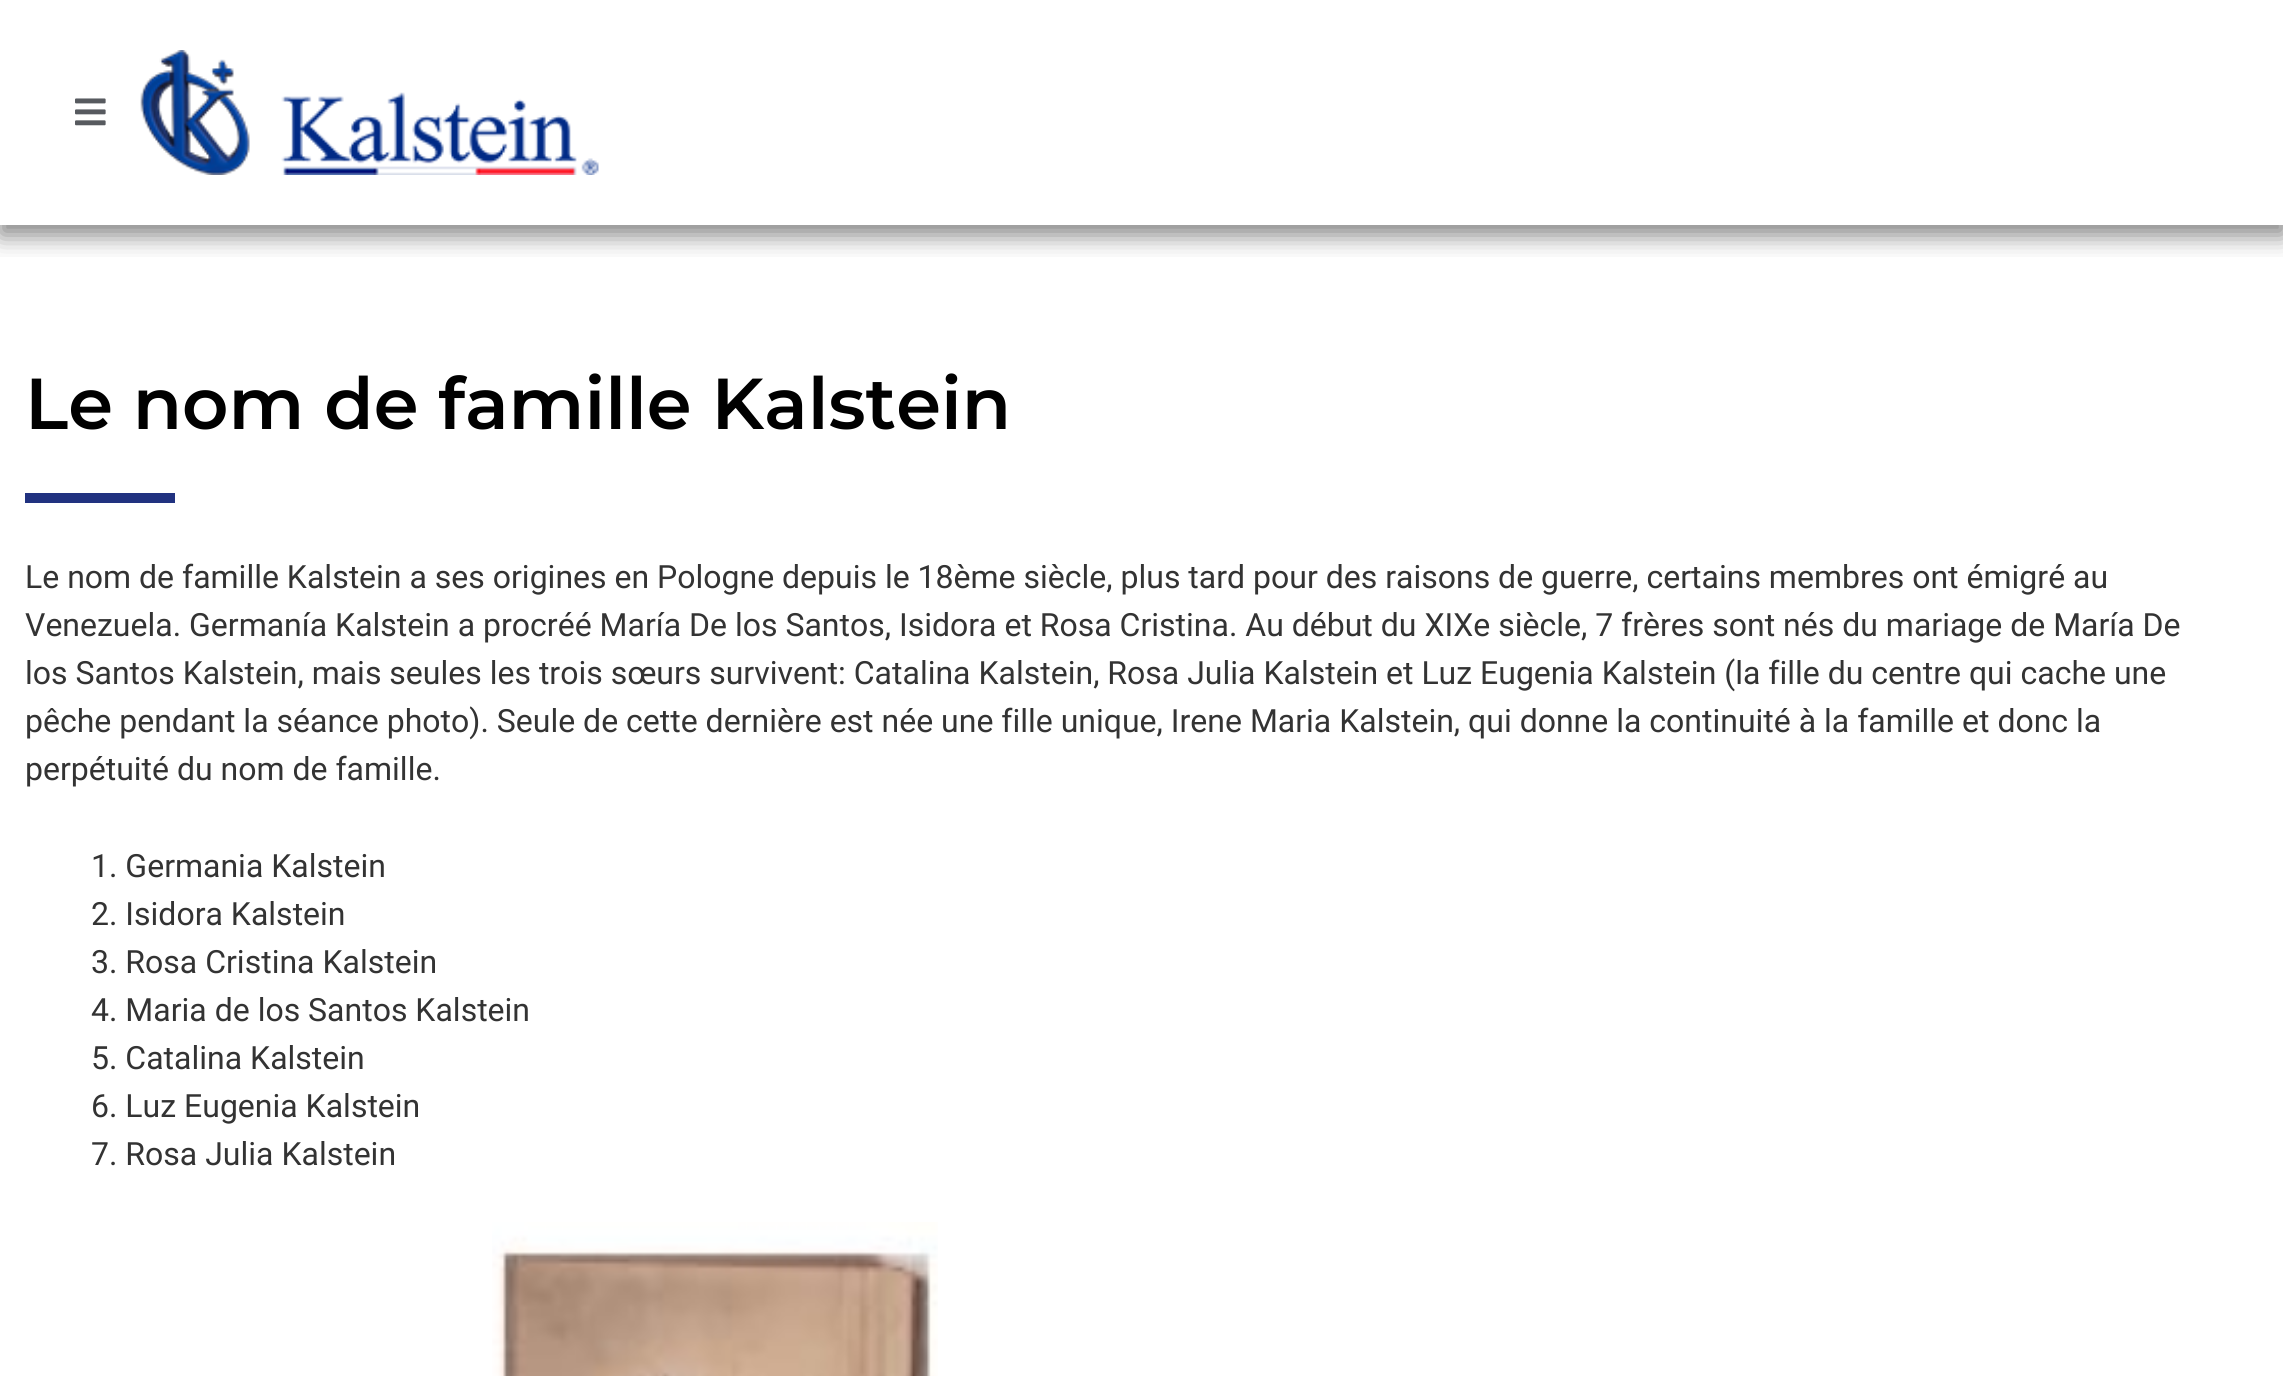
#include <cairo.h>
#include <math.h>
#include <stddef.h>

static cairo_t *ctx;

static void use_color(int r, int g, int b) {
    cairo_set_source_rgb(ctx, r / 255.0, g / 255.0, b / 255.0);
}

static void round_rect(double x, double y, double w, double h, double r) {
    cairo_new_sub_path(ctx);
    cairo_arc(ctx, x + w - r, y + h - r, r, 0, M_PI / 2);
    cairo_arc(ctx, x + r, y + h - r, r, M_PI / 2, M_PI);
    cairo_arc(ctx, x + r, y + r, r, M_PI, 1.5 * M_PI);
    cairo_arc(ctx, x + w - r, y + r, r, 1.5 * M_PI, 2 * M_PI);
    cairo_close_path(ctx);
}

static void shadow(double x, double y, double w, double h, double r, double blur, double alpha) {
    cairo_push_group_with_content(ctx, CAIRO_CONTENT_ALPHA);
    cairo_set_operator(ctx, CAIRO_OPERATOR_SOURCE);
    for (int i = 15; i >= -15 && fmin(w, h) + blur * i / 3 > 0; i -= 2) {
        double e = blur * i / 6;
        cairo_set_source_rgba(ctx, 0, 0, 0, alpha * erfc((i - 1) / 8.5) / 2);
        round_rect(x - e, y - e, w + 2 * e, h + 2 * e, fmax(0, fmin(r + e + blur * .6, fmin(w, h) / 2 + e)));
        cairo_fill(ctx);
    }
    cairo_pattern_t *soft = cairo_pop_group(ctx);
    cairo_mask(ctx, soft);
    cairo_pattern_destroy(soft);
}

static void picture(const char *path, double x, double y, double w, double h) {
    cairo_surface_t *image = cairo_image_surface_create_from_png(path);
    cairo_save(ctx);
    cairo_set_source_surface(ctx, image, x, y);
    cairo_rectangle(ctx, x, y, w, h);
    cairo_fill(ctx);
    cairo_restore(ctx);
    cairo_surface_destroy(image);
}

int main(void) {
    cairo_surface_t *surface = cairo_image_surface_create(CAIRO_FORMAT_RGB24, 2283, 1376);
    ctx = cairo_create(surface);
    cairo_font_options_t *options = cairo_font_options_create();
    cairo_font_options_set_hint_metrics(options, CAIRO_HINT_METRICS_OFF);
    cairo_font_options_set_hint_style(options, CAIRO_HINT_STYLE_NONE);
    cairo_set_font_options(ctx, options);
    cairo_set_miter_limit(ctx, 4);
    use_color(255, 255, 255);
    cairo_paint(ctx);
    cairo_save(ctx);
    cairo_rectangle(ctx, 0, 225, 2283, 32);
    cairo_clip(ctx);
    use_color(0, 0, 0);
    shadow(0, 10, 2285, 225, 0, 12.5, 0.5);
    cairo_restore(ctx);
    picture("img1.png", 75, 98, 31, 28);
    picture("img2.png", 140, 50, 459, 125);
    cairo_select_font_face(ctx, "Montserrat SemiBold", CAIRO_FONT_SLANT_NORMAL, CAIRO_FONT_WEIGHT_NORMAL);
    cairo_set_font_size(ctx, 72);
    use_color(0, 0, 0);
    cairo_move_to(ctx, 25, 429);
    cairo_show_text(ctx, "Le nom de famille Kalstein");
    use_color(33, 50, 128);
    cairo_rectangle(ctx, 25, 493, 150, 10);
    cairo_fill(ctx);
    cairo_select_font_face(ctx, "Roboto", CAIRO_FONT_SLANT_NORMAL, CAIRO_FONT_WEIGHT_NORMAL);
    cairo_set_font_size(ctx, 32);
    use_color(51, 51, 51);
    cairo_move_to(ctx, 25, 588);
    cairo_show_text(ctx, "Le nom de famille Kalstein a ses origines en Pologne depuis le 18ème siècle, plus tard pour des raisons de guerre, certains membres ont émigré au");
    cairo_move_to(ctx, 25, 636);
    cairo_show_text(ctx, "Venezuela. Germanía Kalstein a procréé María De los Santos, Isidora et Rosa Cristina. Au début du XIXe siècle, 7 frères sont nés du mariage de María De");
    cairo_move_to(ctx, 25, 684);
    cairo_show_text(ctx, "los Santos Kalstein, mais seules les trois sœurs survivent: Catalina Kalstein, Rosa Julia Kalstein et Luz Eugenia Kalstein (la fille du centre qui cache une");
    cairo_move_to(ctx, 25, 732);
    cairo_show_text(ctx, "pêche pendant la séance photo). Seule de cette dernière est née une fille unique, Irene Maria Kalstein, qui donne la continuité à la famille et donc la");
    cairo_move_to(ctx, 25, 780);
    cairo_show_text(ctx, "perpétuité du nom de famille.");
    cairo_move_to(ctx, 91, 877);
    cairo_show_text(ctx, "1. Germania Kalstein");
    cairo_move_to(ctx, 91, 925);
    cairo_show_text(ctx, "2. Isidora Kalstein");
    cairo_move_to(ctx, 91, 973);
    cairo_show_text(ctx, "3. Rosa Cristina Kalstein");
    cairo_move_to(ctx, 91, 1021);
    cairo_show_text(ctx, "4. Maria de los Santos Kalstein");
    cairo_move_to(ctx, 91, 1069);
    cairo_show_text(ctx, "5. Catalina Kalstein");
    cairo_move_to(ctx, 91, 1117);
    cairo_show_text(ctx, "6. Luz Eugenia Kalstein");
    cairo_move_to(ctx, 91, 1165);
    cairo_show_text(ctx, "7. Rosa Julia Kalstein");
    picture("img3.png", 492, 1222, 446, 154);
    cairo_surface_write_to_png(surface, "result.png");
    cairo_font_options_destroy(options);
    cairo_destroy(ctx);
    cairo_surface_destroy(surface);
    return 0;
}
